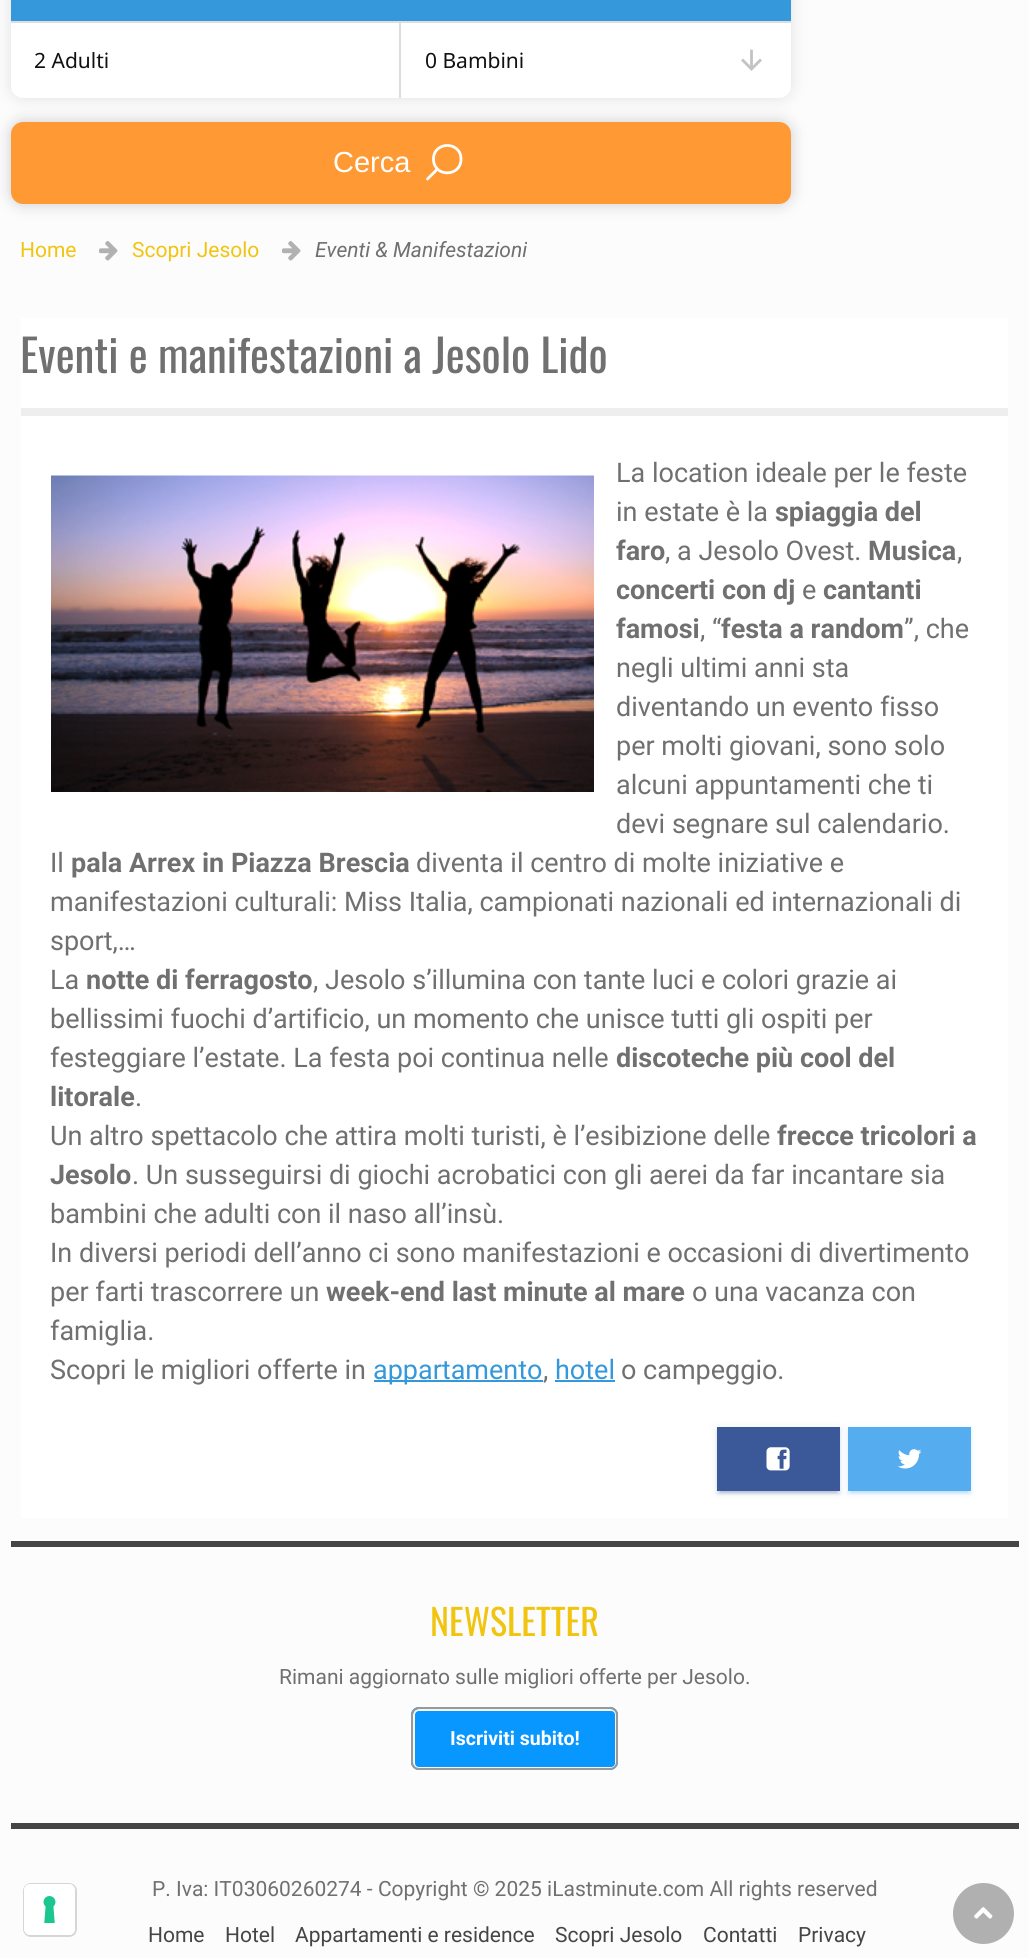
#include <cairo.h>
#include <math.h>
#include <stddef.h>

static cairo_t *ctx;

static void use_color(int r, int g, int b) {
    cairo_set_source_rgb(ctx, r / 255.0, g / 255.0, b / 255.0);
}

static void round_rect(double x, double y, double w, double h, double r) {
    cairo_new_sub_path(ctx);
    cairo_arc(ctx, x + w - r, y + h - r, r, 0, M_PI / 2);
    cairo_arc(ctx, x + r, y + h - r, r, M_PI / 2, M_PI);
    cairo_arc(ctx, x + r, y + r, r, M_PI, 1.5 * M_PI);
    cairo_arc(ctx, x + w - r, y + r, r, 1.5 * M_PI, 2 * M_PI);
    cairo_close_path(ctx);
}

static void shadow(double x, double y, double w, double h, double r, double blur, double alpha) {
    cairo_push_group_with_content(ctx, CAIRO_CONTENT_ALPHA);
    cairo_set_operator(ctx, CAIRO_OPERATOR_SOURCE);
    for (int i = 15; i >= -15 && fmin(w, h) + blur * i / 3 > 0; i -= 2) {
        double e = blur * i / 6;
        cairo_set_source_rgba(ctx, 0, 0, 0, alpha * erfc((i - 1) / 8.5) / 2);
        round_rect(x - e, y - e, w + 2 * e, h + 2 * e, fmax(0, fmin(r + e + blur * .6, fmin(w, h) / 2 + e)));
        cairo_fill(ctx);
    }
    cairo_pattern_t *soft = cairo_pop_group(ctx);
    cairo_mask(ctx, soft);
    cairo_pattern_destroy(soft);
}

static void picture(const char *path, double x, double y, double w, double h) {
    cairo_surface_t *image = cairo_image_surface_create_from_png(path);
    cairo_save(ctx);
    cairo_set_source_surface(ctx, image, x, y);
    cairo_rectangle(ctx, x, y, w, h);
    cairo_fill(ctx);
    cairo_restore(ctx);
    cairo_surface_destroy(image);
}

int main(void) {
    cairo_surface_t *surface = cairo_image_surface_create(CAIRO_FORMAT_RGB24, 1029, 1958);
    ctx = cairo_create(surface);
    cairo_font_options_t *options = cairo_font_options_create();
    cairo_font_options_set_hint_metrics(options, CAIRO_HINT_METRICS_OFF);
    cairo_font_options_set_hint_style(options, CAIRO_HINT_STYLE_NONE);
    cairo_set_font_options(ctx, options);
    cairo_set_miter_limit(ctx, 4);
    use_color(252, 252, 252);
    cairo_paint(ctx);
    use_color(224, 224, 224);
    shadow(11, -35, 780, 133, 12, 7.5, 1);
    use_color(255, 255, 255);
    round_rect(11, -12, 780, 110, 12);
    cairo_fill(ctx);
    use_color(52, 152, 219);
    cairo_rectangle(ctx, 11, 0, 780, 21);
    cairo_fill(ctx);
    use_color(221, 221, 221);
    cairo_rectangle(ctx, 11, 21, 780, 2);
    cairo_fill(ctx);
    cairo_rectangle(ctx, 399, 23, 2, 75);
    cairo_fill(ctx);
    cairo_select_font_face(ctx, "Noto Sans", CAIRO_FONT_SLANT_NORMAL, CAIRO_FONT_WEIGHT_NORMAL);
    cairo_set_font_size(ctx, 21);
    use_color(17, 17, 17);
    cairo_move_to(ctx, 34, 68);
    cairo_show_text(ctx, "2 Adulti");
    cairo_move_to(ctx, 425, 68);
    cairo_show_text(ctx, "0 Bambini");
    cairo_new_path(ctx);
    cairo_move_to(ctx, 743, 60.5);
    cairo_line_to(ctx, 751.5, 69);
    cairo_line_to(ctx, 760, 60.5);
    cairo_move_to(ctx, 751.5, 68);
    cairo_line_to(ctx, 751.5, 51);
    use_color(195, 195, 195);
    cairo_set_line_width(ctx, 2.8);
    cairo_set_line_cap(ctx, CAIRO_LINE_CAP_SQUARE);
    cairo_stroke(ctx);
    use_color(204, 204, 204);
    shadow(11, 122, 780, 82, 12, 7.5, 1);
    use_color(255, 153, 51);
    round_rect(11, 122, 780, 82, 12);
    cairo_fill(ctx);
    cairo_select_font_face(ctx, "Liberation Sans", CAIRO_FONT_SLANT_NORMAL, CAIRO_FONT_WEIGHT_NORMAL);
    cairo_set_font_size(ctx, 29);
    use_color(255, 255, 255);
    cairo_move_to(ctx, 333, 172);
    cairo_show_text(ctx, "Cerca");
    cairo_new_path(ctx);
    cairo_move_to(ctx, 461, 159);
    cairo_curve_to(ctx, 461, 141, 433.5, 141, 433.5, 159);
    cairo_curve_to(ctx, 433.5, 177.5, 461, 177.5, 461, 159);
    cairo_close_path(ctx);
    cairo_set_line_cap(ctx, CAIRO_LINE_CAP_BUTT);
    cairo_stroke(ctx);
    cairo_new_path(ctx);
    cairo_move_to(ctx, 437, 169.5);
    cairo_line_to(ctx, 427.5, 179);
    cairo_set_line_cap(ctx, CAIRO_LINE_CAP_ROUND);
    cairo_stroke(ctx);
    cairo_select_font_face(ctx, "Roboto", CAIRO_FONT_SLANT_NORMAL, CAIRO_FONT_WEIGHT_NORMAL);
    cairo_set_font_size(ctx, 21);
    use_color(241, 196, 15);
    cairo_move_to(ctx, 20, 257);
    cairo_show_text(ctx, "Home");
    picture("img1.png", 99, 241, 19, 20);
    cairo_move_to(ctx, 132, 257);
    cairo_show_text(ctx, "Scopri Jesolo");
    picture("img1.png", 282, 241, 19, 20);
    cairo_select_font_face(ctx, "Roboto", CAIRO_FONT_SLANT_ITALIC, CAIRO_FONT_WEIGHT_NORMAL);
    use_color(112, 112, 112);
    cairo_move_to(ctx, 315, 257);
    cairo_show_text(ctx, "Eventi & Manifestazioni");
    use_color(255, 255, 255);
    cairo_rectangle(ctx, 21, 318, 987, 1200);
    cairo_fill(ctx);
    cairo_select_font_face(ctx, "Oswald", CAIRO_FONT_SLANT_NORMAL, CAIRO_FONT_WEIGHT_NORMAL);
    cairo_set_font_size(ctx, 45);
    use_color(112, 112, 112);
    cairo_move_to(ctx, 20, 373);
    cairo_show_text(ctx, "Eventi e manifestazioni a Jesolo Lido");
    use_color(238, 238, 238);
    cairo_rectangle(ctx, 21, 408, 987, 8);
    cairo_fill(ctx);
    picture("img2.png", 51, 475, 543, 317);
    cairo_select_font_face(ctx, "Roboto", CAIRO_FONT_SLANT_NORMAL, CAIRO_FONT_WEIGHT_NORMAL);
    cairo_set_font_size(ctx, 27);
    use_color(112, 112, 112);
    cairo_move_to(ctx, 616, 482);
    cairo_show_text(ctx, "La location ideale per le feste");
    cairo_move_to(ctx, 616, 521);
    cairo_show_text(ctx, "in estate è la");
    cairo_select_font_face(ctx, "Roboto", CAIRO_FONT_SLANT_NORMAL, CAIRO_FONT_WEIGHT_BOLD);
    cairo_move_to(ctx, 775, 521);
    cairo_show_text(ctx, "spiaggia del");
    cairo_move_to(ctx, 616, 560);
    cairo_show_text(ctx, "faro");
    cairo_select_font_face(ctx, "Roboto", CAIRO_FONT_SLANT_NORMAL, CAIRO_FONT_WEIGHT_NORMAL);
    cairo_move_to(ctx, 665, 560);
    cairo_show_text(ctx, ", a Jesolo Ovest.");
    cairo_select_font_face(ctx, "Roboto", CAIRO_FONT_SLANT_NORMAL, CAIRO_FONT_WEIGHT_BOLD);
    cairo_move_to(ctx, 868, 560);
    cairo_show_text(ctx, "Musica");
    cairo_select_font_face(ctx, "Roboto", CAIRO_FONT_SLANT_NORMAL, CAIRO_FONT_WEIGHT_NORMAL);
    cairo_move_to(ctx, 957, 560);
    cairo_show_text(ctx, ",");
    cairo_select_font_face(ctx, "Roboto", CAIRO_FONT_SLANT_NORMAL, CAIRO_FONT_WEIGHT_BOLD);
    cairo_move_to(ctx, 616, 599);
    cairo_show_text(ctx, "concerti con dj");
    cairo_select_font_face(ctx, "Roboto", CAIRO_FONT_SLANT_NORMAL, CAIRO_FONT_WEIGHT_NORMAL);
    cairo_move_to(ctx, 802, 599);
    cairo_show_text(ctx, "e");
    cairo_select_font_face(ctx, "Roboto", CAIRO_FONT_SLANT_NORMAL, CAIRO_FONT_WEIGHT_BOLD);
    cairo_move_to(ctx, 823, 599);
    cairo_show_text(ctx, "cantanti");
    cairo_move_to(ctx, 616, 638);
    cairo_show_text(ctx, "famosi");
    cairo_select_font_face(ctx, "Roboto", CAIRO_FONT_SLANT_NORMAL, CAIRO_FONT_WEIGHT_NORMAL);
    cairo_move_to(ctx, 700, 638);
    cairo_show_text(ctx, ", “");
    cairo_select_font_face(ctx, "Roboto", CAIRO_FONT_SLANT_NORMAL, CAIRO_FONT_WEIGHT_BOLD);
    cairo_move_to(ctx, 721, 638);
    cairo_show_text(ctx, "festa a random");
    cairo_select_font_face(ctx, "Roboto", CAIRO_FONT_SLANT_NORMAL, CAIRO_FONT_WEIGHT_NORMAL);
    cairo_move_to(ctx, 904, 638);
    cairo_show_text(ctx, "”, che");
    cairo_move_to(ctx, 616, 677);
    cairo_show_text(ctx, "negli ultimi anni sta");
    cairo_move_to(ctx, 616, 716);
    cairo_show_text(ctx, "diventando un evento fisso");
    cairo_move_to(ctx, 616, 755);
    cairo_show_text(ctx, "per molti giovani, sono solo");
    cairo_move_to(ctx, 616, 794);
    cairo_show_text(ctx, "alcuni appuntamenti che ti");
    cairo_move_to(ctx, 616, 833);
    cairo_show_text(ctx, "devi segnare sul calendario.");
    cairo_move_to(ctx, 50, 872);
    cairo_show_text(ctx, "Il");
    cairo_select_font_face(ctx, "Roboto", CAIRO_FONT_SLANT_NORMAL, CAIRO_FONT_WEIGHT_BOLD);
    cairo_move_to(ctx, 71, 872);
    cairo_show_text(ctx, "pala Arrex in Piazza Brescia");
    cairo_select_font_face(ctx, "Roboto", CAIRO_FONT_SLANT_NORMAL, CAIRO_FONT_WEIGHT_NORMAL);
    cairo_move_to(ctx, 416, 872);
    cairo_show_text(ctx, "diventa il centro di molte iniziative e");
    cairo_move_to(ctx, 50, 911);
    cairo_show_text(ctx, "manifestazioni culturali: Miss Italia, campionati nazionali ed internazionali di");
    cairo_move_to(ctx, 50, 950);
    cairo_show_text(ctx, "sport,…");
    cairo_move_to(ctx, 50, 989);
    cairo_show_text(ctx, "La");
    cairo_select_font_face(ctx, "Roboto", CAIRO_FONT_SLANT_NORMAL, CAIRO_FONT_WEIGHT_BOLD);
    cairo_move_to(ctx, 86, 989);
    cairo_show_text(ctx, "notte di ferragosto");
    cairo_select_font_face(ctx, "Roboto", CAIRO_FONT_SLANT_NORMAL, CAIRO_FONT_WEIGHT_NORMAL);
    cairo_move_to(ctx, 313, 989);
    cairo_show_text(ctx, ", Jesolo s’illumina con tante luci e colori grazie ai");
    cairo_move_to(ctx, 50, 1028);
    cairo_show_text(ctx, "bellissimi fuochi d’artificio, un momento che unisce tutti gli ospiti per");
    cairo_move_to(ctx, 50, 1067);
    cairo_show_text(ctx, "festeggiare l’estate. La festa poi continua nelle");
    cairo_select_font_face(ctx, "Roboto", CAIRO_FONT_SLANT_NORMAL, CAIRO_FONT_WEIGHT_BOLD);
    cairo_move_to(ctx, 616, 1067);
    cairo_show_text(ctx, "discoteche più cool del");
    cairo_move_to(ctx, 50, 1106);
    cairo_show_text(ctx, "litorale");
    cairo_select_font_face(ctx, "Roboto", CAIRO_FONT_SLANT_NORMAL, CAIRO_FONT_WEIGHT_NORMAL);
    cairo_move_to(ctx, 135, 1106);
    cairo_show_text(ctx, ".");
    cairo_move_to(ctx, 50, 1145);
    cairo_show_text(ctx, "Un altro spettacolo che attira molti turisti, è l’esibizione delle");
    cairo_select_font_face(ctx, "Roboto", CAIRO_FONT_SLANT_NORMAL, CAIRO_FONT_WEIGHT_BOLD);
    cairo_move_to(ctx, 777, 1145);
    cairo_show_text(ctx, "frecce tricolori a");
    cairo_move_to(ctx, 50, 1184);
    cairo_show_text(ctx, "Jesolo");
    cairo_select_font_face(ctx, "Roboto", CAIRO_FONT_SLANT_NORMAL, CAIRO_FONT_WEIGHT_NORMAL);
    cairo_move_to(ctx, 132, 1184);
    cairo_show_text(ctx, ". Un susseguirsi di giochi acrobatici con gli aerei da far incantare sia");
    cairo_move_to(ctx, 50, 1223);
    cairo_show_text(ctx, "bambini che adulti con il naso all’insù.");
    cairo_move_to(ctx, 50, 1262);
    cairo_show_text(ctx, "In diversi periodi dell’anno ci sono manifestazioni e occasioni di divertimento");
    cairo_move_to(ctx, 50, 1301);
    cairo_show_text(ctx, "per farti trascorrere un");
    cairo_select_font_face(ctx, "Roboto", CAIRO_FONT_SLANT_NORMAL, CAIRO_FONT_WEIGHT_BOLD);
    cairo_move_to(ctx, 326, 1301);
    cairo_show_text(ctx, "week-end last minute al mare");
    cairo_select_font_face(ctx, "Roboto", CAIRO_FONT_SLANT_NORMAL, CAIRO_FONT_WEIGHT_NORMAL);
    cairo_move_to(ctx, 692, 1301);
    cairo_show_text(ctx, "o una vacanza con");
    cairo_move_to(ctx, 50, 1340);
    cairo_show_text(ctx, "famiglia.");
    cairo_move_to(ctx, 50, 1379);
    cairo_show_text(ctx, "Scopri le migliori offerte in");
    use_color(52, 152, 219);
    cairo_rectangle(ctx, 374, 1380, 169, 2);
    cairo_fill(ctx);
    cairo_move_to(ctx, 373, 1379);
    cairo_show_text(ctx, "appartamento");
    use_color(112, 112, 112);
    cairo_move_to(ctx, 543, 1379);
    cairo_show_text(ctx, ",");
    use_color(52, 152, 219);
    cairo_move_to(ctx, 555, 1379);
    cairo_show_text(ctx, "hotel");
    cairo_rectangle(ctx, 555, 1380, 60, 2);
    cairo_fill(ctx);
    use_color(112, 112, 112);
    cairo_move_to(ctx, 621, 1379);
    cairo_show_text(ctx, "o campeggio.");
    use_color(85, 172, 238);
    shadow(848, 1428, 123, 65, 0, 4, 0.12);
    shadow(851, 1434, 117, 59, 0, 1, 0.2);
    shadow(848, 1430, 123, 64, 0, 1.5, 0.14);
    use_color(85, 172, 238);
    cairo_rectangle(ctx, 848, 1427, 123, 64);
    cairo_fill(ctx);
    use_color(59, 89, 152);
    shadow(717, 1428, 123, 65, 0, 4, 0.12);
    shadow(720, 1434, 117, 59, 0, 1, 0.2);
    shadow(717, 1430, 123, 64, 0, 1.5, 0.14);
    use_color(59, 89, 152);
    cairo_rectangle(ctx, 717, 1427, 123, 64);
    cairo_fill(ctx);
    picture("img3.png", 766, 1447, 24, 24);
    picture("img4.png", 898, 1449, 24, 20);
    use_color(69, 69, 69);
    cairo_rectangle(ctx, 11, 1541, 1008, 6);
    cairo_fill(ctx);
    cairo_select_font_face(ctx, "Oswald", CAIRO_FONT_SLANT_NORMAL, CAIRO_FONT_WEIGHT_NORMAL);
    cairo_set_font_size(ctx, 36);
    use_color(241, 196, 15);
    cairo_move_to(ctx, 430, 1636);
    cairo_show_text(ctx, "NEWSLETTER");
    cairo_select_font_face(ctx, "Roboto", CAIRO_FONT_SLANT_NORMAL, CAIRO_FONT_WEIGHT_NORMAL);
    cairo_set_font_size(ctx, 21);
    use_color(112, 112, 112);
    cairo_move_to(ctx, 279, 1684);
    cairo_show_text(ctx, "Rimani aggiornato sulle migliori offerte per Jesolo.");
    use_color(8, 150, 255);
    round_rect(411, 1707, 207, 63, 8);
    cairo_fill(ctx);
    round_rect(414, 1710, 202, 58, 5);
    use_color(246, 246, 246);
    cairo_set_line_width(ctx, 2);
    cairo_set_line_cap(ctx, CAIRO_LINE_CAP_BUTT);
    cairo_stroke(ctx);
    round_rect(412, 1708, 205, 61, 7);
    use_color(153, 153, 153);
    cairo_stroke(ctx);
    cairo_select_font_face(ctx, "Roboto", CAIRO_FONT_SLANT_NORMAL, CAIRO_FONT_WEIGHT_BOLD);
    cairo_set_font_size(ctx, 19.5);
    use_color(255, 255, 255);
    cairo_move_to(ctx, 450, 1745);
    cairo_show_text(ctx, "Iscriviti subito!");
    use_color(69, 69, 69);
    cairo_rectangle(ctx, 11, 1823, 1008, 6);
    cairo_fill(ctx);
    cairo_select_font_face(ctx, "Roboto", CAIRO_FONT_SLANT_NORMAL, CAIRO_FONT_WEIGHT_NORMAL);
    cairo_set_font_size(ctx, 21);
    use_color(112, 112, 112);
    cairo_move_to(ctx, 152, 1896);
    cairo_show_text(ctx, "P. Iva: IT03060260274 - Copyright © 2025 iLastminute.com All rights reserved");
    use_color(69, 69, 69);
    cairo_move_to(ctx, 148, 1942);
    cairo_show_text(ctx, "Home");
    cairo_move_to(ctx, 225, 1942);
    cairo_show_text(ctx, "Hotel");
    cairo_move_to(ctx, 295, 1942);
    cairo_show_text(ctx, "Appartamenti e residence");
    cairo_move_to(ctx, 555, 1942);
    cairo_show_text(ctx, "Scopri Jesolo");
    cairo_move_to(ctx, 703, 1942);
    cairo_show_text(ctx, "Contatti");
    cairo_move_to(ctx, 798, 1942);
    cairo_show_text(ctx, "Privacy");
    round_rect(24, 1884, 52, 52, 7);
    use_color(214, 214, 214);
    cairo_stroke(ctx);
    use_color(255, 255, 255);
    round_rect(24, 1884, 51, 51, 6);
    cairo_fill(ctx);
    picture("img5.png", 43, 1896, 13, 27);
    use_color(176, 176, 176);
    cairo_arc(ctx, 983.5, 1913.5, 30.5, 0, 2 * M_PI);
    cairo_fill(ctx);
    picture("img6.png", 974, 1907, 19, 12);
    cairo_surface_write_to_png(surface, "result.png");
    cairo_font_options_destroy(options);
    cairo_destroy(ctx);
    cairo_surface_destroy(surface);
    return 0;
}
